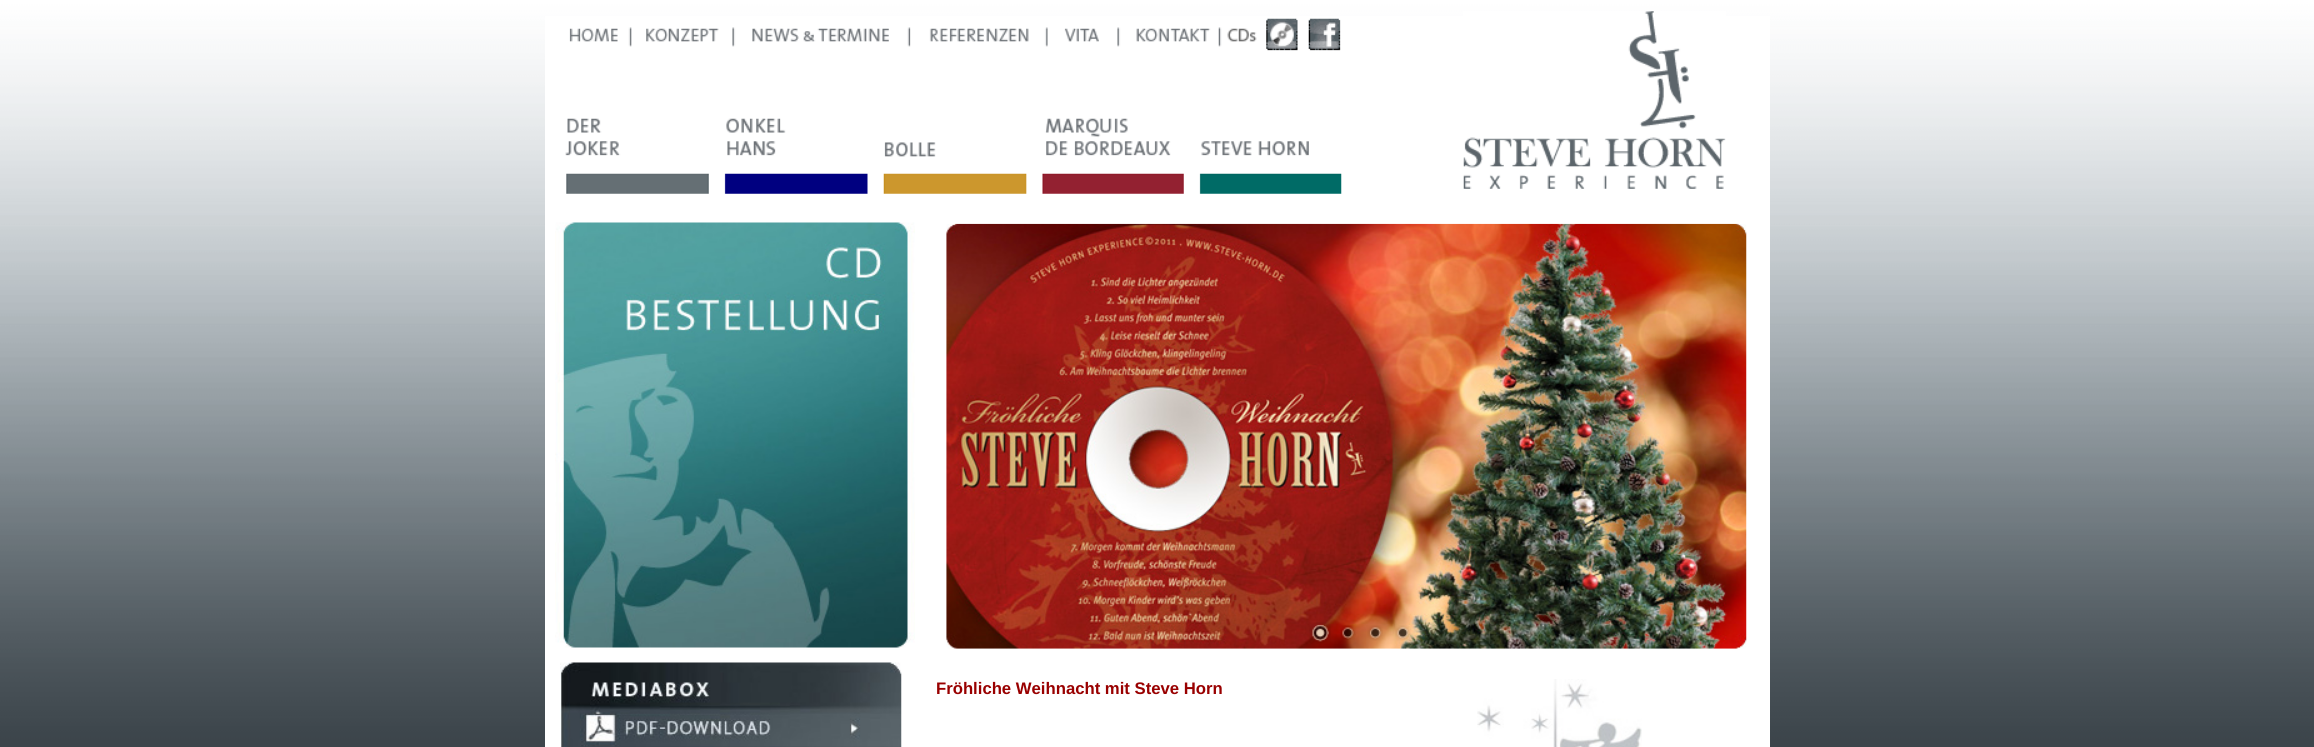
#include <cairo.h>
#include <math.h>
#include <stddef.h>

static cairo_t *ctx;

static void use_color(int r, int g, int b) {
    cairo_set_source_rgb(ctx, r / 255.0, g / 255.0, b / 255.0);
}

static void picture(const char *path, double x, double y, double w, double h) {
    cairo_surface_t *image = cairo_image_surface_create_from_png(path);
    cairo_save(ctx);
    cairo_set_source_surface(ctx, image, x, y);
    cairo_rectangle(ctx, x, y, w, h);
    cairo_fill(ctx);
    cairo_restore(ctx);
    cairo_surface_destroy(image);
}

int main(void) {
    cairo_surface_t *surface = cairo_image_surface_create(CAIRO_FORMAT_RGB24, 2314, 747);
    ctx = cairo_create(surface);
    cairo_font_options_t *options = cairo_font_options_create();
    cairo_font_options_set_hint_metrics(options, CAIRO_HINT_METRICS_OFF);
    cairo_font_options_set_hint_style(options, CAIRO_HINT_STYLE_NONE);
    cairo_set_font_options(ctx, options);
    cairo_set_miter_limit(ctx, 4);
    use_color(255, 255, 255);
    cairo_paint(ctx);
    picture("img1.png", 0, 0, 2314, 747);
    use_color(255, 255, 255);
    cairo_rectangle(ctx, 545, 16, 1225, 731);
    cairo_fill(ctx);
    picture("img2.png", 565, 18, 777, 176);
    picture("img3.png", 1463, 11, 263, 178);
    picture("img4.png", 555, 222, 360, 426);
    picture("img5.png", 946, 223, 801, 426);
    picture("img6.png", 1309, 622, 22, 22);
    picture("img7.png", 1340, 625, 16, 15);
    picture("img8.png", 1367, 625, 16, 16);
    picture("img9.png", 1395, 625, 16, 16);
    picture("img10.png", 560, 662, 342, 85);
    cairo_select_font_face(ctx, "Liberation Sans", CAIRO_FONT_SLANT_NORMAL, CAIRO_FONT_WEIGHT_BOLD);
    cairo_set_font_size(ctx, 16.7);
    use_color(153, 0, 0);
    cairo_move_to(ctx, 936, 694);
    cairo_show_text(ctx, "Fröhliche Weihnacht mit Steve Horn");
    picture("img11.png", 1477, 679, 165, 68);
    cairo_surface_write_to_png(surface, "result.png");
    cairo_font_options_destroy(options);
    cairo_destroy(ctx);
    cairo_surface_destroy(surface);
    return 0;
}
